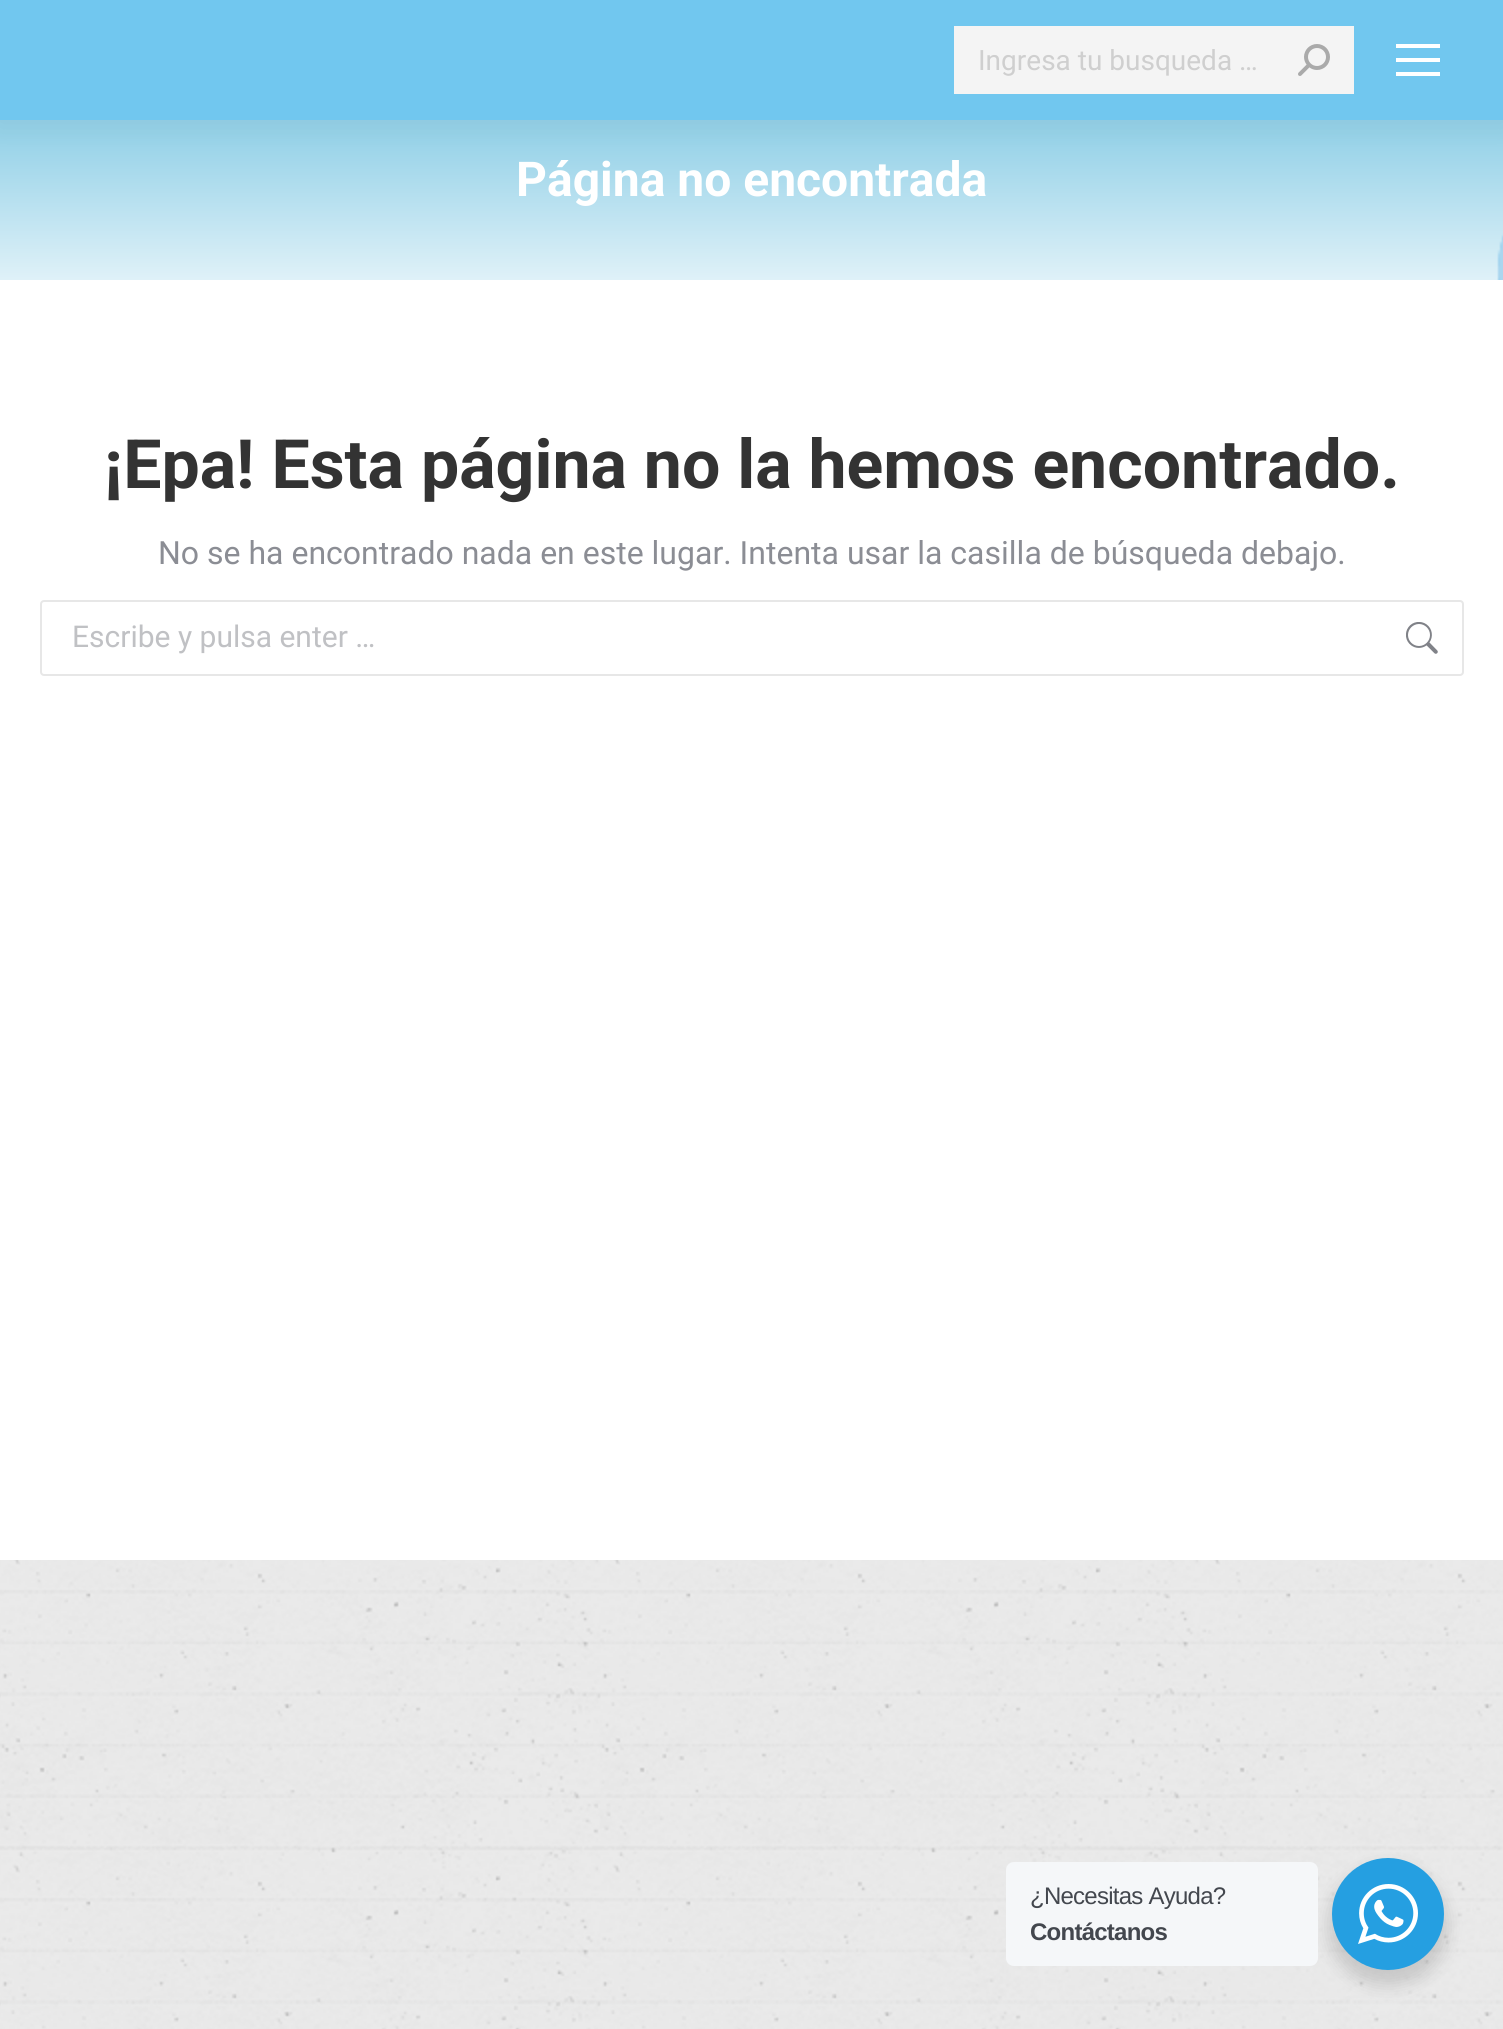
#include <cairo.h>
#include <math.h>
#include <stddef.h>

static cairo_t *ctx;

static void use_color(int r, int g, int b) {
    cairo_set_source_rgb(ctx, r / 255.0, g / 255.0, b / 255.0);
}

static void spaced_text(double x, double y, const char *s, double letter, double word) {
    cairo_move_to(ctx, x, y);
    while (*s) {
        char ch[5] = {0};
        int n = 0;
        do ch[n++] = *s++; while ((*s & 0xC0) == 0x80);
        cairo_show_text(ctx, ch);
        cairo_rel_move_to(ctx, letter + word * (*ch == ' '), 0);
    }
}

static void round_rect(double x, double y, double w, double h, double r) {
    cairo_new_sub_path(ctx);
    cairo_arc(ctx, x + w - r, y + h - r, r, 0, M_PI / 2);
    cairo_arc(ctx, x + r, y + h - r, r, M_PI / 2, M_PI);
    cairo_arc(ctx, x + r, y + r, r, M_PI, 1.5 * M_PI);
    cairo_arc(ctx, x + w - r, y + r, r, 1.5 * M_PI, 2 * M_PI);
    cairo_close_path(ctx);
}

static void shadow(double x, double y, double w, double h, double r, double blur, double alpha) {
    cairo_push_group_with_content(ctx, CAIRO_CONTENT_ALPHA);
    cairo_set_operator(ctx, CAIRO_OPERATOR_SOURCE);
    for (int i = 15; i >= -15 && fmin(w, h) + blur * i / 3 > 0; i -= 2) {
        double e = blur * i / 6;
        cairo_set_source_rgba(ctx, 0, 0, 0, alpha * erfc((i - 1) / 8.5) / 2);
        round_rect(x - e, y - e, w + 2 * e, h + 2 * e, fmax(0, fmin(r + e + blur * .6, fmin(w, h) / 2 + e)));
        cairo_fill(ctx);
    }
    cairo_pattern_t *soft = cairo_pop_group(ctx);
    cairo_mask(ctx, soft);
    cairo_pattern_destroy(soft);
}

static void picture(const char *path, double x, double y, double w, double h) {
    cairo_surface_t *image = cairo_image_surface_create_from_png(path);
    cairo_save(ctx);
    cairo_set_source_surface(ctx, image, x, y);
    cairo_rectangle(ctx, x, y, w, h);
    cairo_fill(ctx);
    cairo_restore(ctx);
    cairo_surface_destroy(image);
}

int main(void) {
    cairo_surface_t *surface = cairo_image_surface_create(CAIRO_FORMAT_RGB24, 1503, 2029);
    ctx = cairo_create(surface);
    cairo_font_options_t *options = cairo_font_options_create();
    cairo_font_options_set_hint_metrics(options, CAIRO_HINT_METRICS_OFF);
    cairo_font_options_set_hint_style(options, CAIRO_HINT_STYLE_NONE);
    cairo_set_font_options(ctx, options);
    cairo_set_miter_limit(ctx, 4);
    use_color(255, 255, 255);
    cairo_paint(ctx);
    picture("img1.png", 0, 1560, 1503, 469);
    picture("img3.png", 0, 120, 1503, 160);
    use_color(0, 0, 0);
    shadow(-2, -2, 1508, 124, 0, 15, 0.07);
    use_color(113, 199, 239);
    cairo_rectangle(ctx, 0, 0, 1503, 120);
    cairo_fill(ctx);
    use_color(244, 244, 244);
    cairo_rectangle(ctx, 954, 26, 400, 68);
    cairo_fill(ctx);
    cairo_select_font_face(ctx, "Roboto", CAIRO_FONT_SLANT_NORMAL, CAIRO_FONT_WEIGHT_NORMAL);
    cairo_set_font_size(ctx, 28);
    use_color(207, 207, 207);
    cairo_move_to(ctx, 978, 70);
    cairo_show_text(ctx, "Ingresa tu busqueda …");
    picture("img2.png", 1298, 44, 32, 32);
    use_color(255, 255, 255);
    cairo_rectangle(ctx, 1396, 44, 44, 4);
    cairo_fill(ctx);
    cairo_rectangle(ctx, 1396, 58, 44, 4);
    cairo_fill(ctx);
    cairo_rectangle(ctx, 1396, 72, 44, 4);
    cairo_fill(ctx);
    cairo_select_font_face(ctx, "Roboto", CAIRO_FONT_SLANT_NORMAL, CAIRO_FONT_WEIGHT_BOLD);
    cairo_set_font_size(ctx, 48);
    cairo_move_to(ctx, 516, 196);
    cairo_show_text(ctx, "Página no encontrada");
    cairo_set_font_size(ctx, 68);
    use_color(51, 51, 51);
    cairo_move_to(ctx, 104, 488);
    cairo_show_text(ctx, "¡Epa! Esta página no la hemos encontrado.");
    cairo_select_font_face(ctx, "Roboto", CAIRO_FONT_SLANT_NORMAL, CAIRO_FONT_WEIGHT_NORMAL);
    cairo_set_font_size(ctx, 32);
    use_color(139, 141, 148);
    cairo_move_to(ctx, 158, 564);
    cairo_show_text(ctx, "No se ha encontrado nada en este lugar. Intenta usar la casilla de búsqueda debajo.");
    round_rect(41, 601, 1422, 74, 3);
    use_color(231, 231, 231);
    cairo_stroke(ctx);
    cairo_set_font_size(ctx, 30);
    use_color(192, 193, 196);
    cairo_move_to(ctx, 72, 647);
    cairo_show_text(ctx, "Escribe y pulsa enter …");
    picture("img4.png", 1406, 622, 32, 32);
    use_color(0, 0, 0);
    shadow(1328, 1866, 120, 120, 60, 8, 0.14);
    use_color(245, 247, 249);
    round_rect(1006, 1862, 312, 104, 8);
    cairo_fill(ctx);
    cairo_select_font_face(ctx, "Liberation Sans", CAIRO_FONT_SLANT_NORMAL, CAIRO_FONT_WEIGHT_NORMAL);
    cairo_set_font_size(ctx, 24);
    use_color(67, 71, 78);
    spaced_text(1030, 1904, "¿Necesitas Ayuda?", -0.75, 0);
    cairo_select_font_face(ctx, "Liberation Sans", CAIRO_FONT_SLANT_NORMAL, CAIRO_FONT_WEIGHT_BOLD);
    spaced_text(1030, 1940, "Contáctanos", -0.75, 0);
    use_color(37, 159, 225);
    cairo_new_path(ctx);
    cairo_arc(ctx, 1388, 1914, 56, 0, 2 * M_PI);
    cairo_fill(ctx);
    picture("img5.png", 1358, 1884, 60, 60);
    cairo_surface_write_to_png(surface, "result.png");
    cairo_font_options_destroy(options);
    cairo_destroy(ctx);
    cairo_surface_destroy(surface);
    return 0;
}
